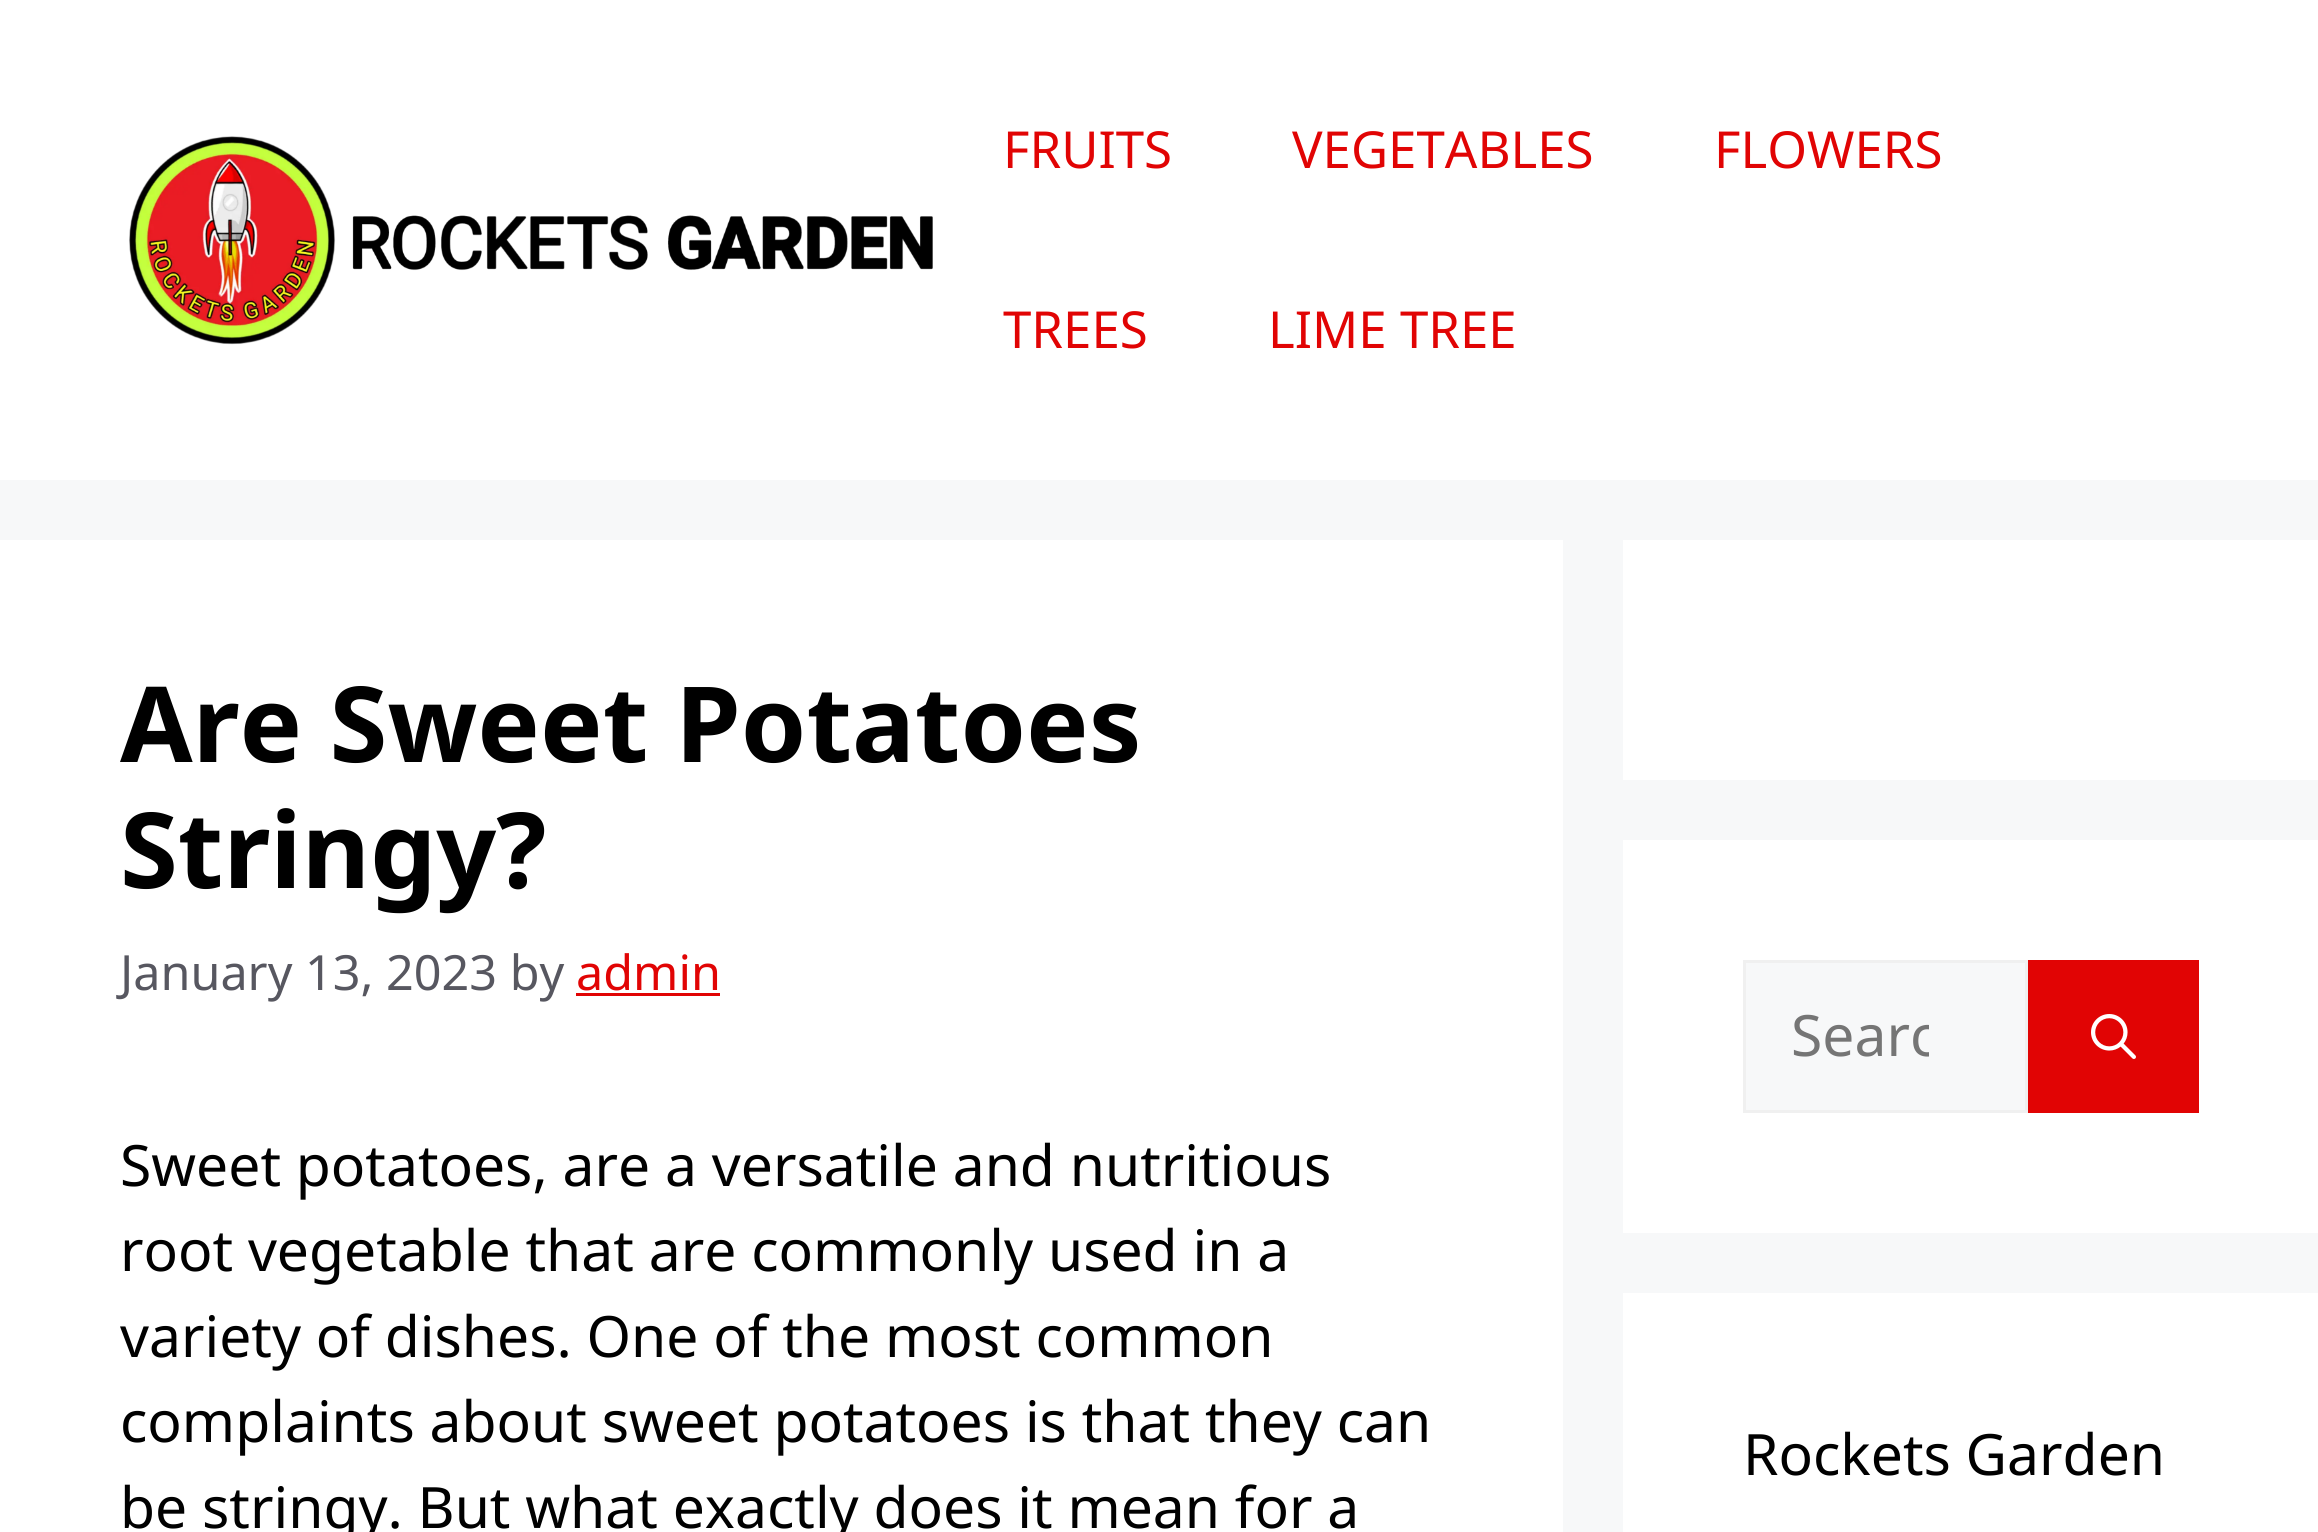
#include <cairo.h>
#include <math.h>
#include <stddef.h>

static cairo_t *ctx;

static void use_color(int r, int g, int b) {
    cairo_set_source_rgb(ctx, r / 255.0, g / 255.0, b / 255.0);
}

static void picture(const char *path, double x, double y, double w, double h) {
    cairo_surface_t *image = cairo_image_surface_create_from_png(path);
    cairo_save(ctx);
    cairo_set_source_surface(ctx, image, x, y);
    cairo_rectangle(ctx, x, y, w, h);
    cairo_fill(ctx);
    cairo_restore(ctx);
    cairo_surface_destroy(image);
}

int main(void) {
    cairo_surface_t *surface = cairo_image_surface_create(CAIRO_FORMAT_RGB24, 2318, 1532);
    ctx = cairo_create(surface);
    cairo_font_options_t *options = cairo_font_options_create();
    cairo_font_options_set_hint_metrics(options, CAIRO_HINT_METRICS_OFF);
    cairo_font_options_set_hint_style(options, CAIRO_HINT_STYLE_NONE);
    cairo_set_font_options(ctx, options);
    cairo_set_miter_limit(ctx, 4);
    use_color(247, 248, 249);
    cairo_paint(ctx);
    use_color(255, 255, 255);
    cairo_rectangle(ctx, 0, 0, 2318, 480);
    cairo_fill(ctx);
    picture("img1.png", 129, 136, 804, 209);
    cairo_select_font_face(ctx, "Noto Sans", CAIRO_FONT_SLANT_NORMAL, CAIRO_FONT_WEIGHT_NORMAL);
    cairo_set_font_size(ctx, 51);
    use_color(225, 4, 4);
    cairo_move_to(ctx, 1003, 168);
    cairo_show_text(ctx, "FRUITS");
    cairo_move_to(ctx, 1292, 168);
    cairo_show_text(ctx, "VEGETABLES");
    cairo_move_to(ctx, 1714, 168);
    cairo_show_text(ctx, "FLOWERS");
    cairo_move_to(ctx, 1003, 348);
    cairo_show_text(ctx, "TREES");
    cairo_move_to(ctx, 1268, 348);
    cairo_show_text(ctx, "LIME TREE");
    use_color(255, 255, 255);
    cairo_rectangle(ctx, 0, 540, 1563, 992);
    cairo_fill(ctx);
    cairo_select_font_face(ctx, "Noto Sans", CAIRO_FONT_SLANT_NORMAL, CAIRO_FONT_WEIGHT_BOLD);
    cairo_set_font_size(ctx, 105);
    use_color(0, 0, 0);
    cairo_move_to(ctx, 120, 762);
    cairo_show_text(ctx, "Are Sweet Potatoes");
    cairo_move_to(ctx, 120, 888);
    cairo_show_text(ctx, "Stringy?");
    cairo_select_font_face(ctx, "Noto Sans", CAIRO_FONT_SLANT_NORMAL, CAIRO_FONT_WEIGHT_NORMAL);
    cairo_set_font_size(ctx, 48.5);
    use_color(87, 87, 96);
    cairo_move_to(ctx, 120, 990);
    cairo_show_text(ctx, "January 13, 2023 by");
    use_color(225, 4, 4);
    cairo_move_to(ctx, 576, 990);
    cairo_show_text(ctx, "admin");
    cairo_rectangle(ctx, 576, 993, 144, 3);
    cairo_fill(ctx);
    cairo_set_font_size(ctx, 57);
    use_color(0, 0, 0);
    cairo_move_to(ctx, 120, 1186);
    cairo_show_text(ctx, "Sweet potatoes, are a versatile and nutritious");
    cairo_move_to(ctx, 120, 1271);
    cairo_show_text(ctx, "root vegetable that are commonly used in a");
    cairo_move_to(ctx, 120, 1357);
    cairo_show_text(ctx, "variety of dishes. One of the most common");
    cairo_move_to(ctx, 120, 1442);
    cairo_show_text(ctx, "complaints about sweet potatoes is that they can");
    cairo_move_to(ctx, 120, 1528);
    cairo_show_text(ctx, "be stringy. But what exactly does it mean for a");
    use_color(255, 255, 255);
    cairo_rectangle(ctx, 1623, 540, 695, 240);
    cairo_fill(ctx);
    cairo_rectangle(ctx, 1623, 840, 695, 393);
    cairo_fill(ctx);
    use_color(247, 248, 249);
    cairo_rectangle(ctx, 1744.5, 961.5, 282, 150);
    cairo_fill_preserve(ctx);
    use_color(240, 240, 240);
    cairo_set_line_width(ctx, 3);
    cairo_stroke(ctx);
    cairo_save(ctx);
    cairo_rectangle(ctx, 1791, 996, 138, 78);
    cairo_clip(ctx);
    use_color(117, 117, 117);
    cairo_move_to(ctx, 1791, 1056);
    cairo_show_text(ctx, "Searc");
    cairo_restore(ctx);
    use_color(225, 4, 4);
    cairo_rectangle(ctx, 2028, 960, 171, 153);
    cairo_fill(ctx);
    picture("img2.png", 2091, 1014, 45, 45);
    use_color(255, 255, 255);
    cairo_rectangle(ctx, 1623, 1293, 695, 239);
    cairo_fill(ctx);
    use_color(0, 0, 0);
    cairo_move_to(ctx, 1743, 1475);
    cairo_show_text(ctx, "Rockets Garden");
    cairo_surface_write_to_png(surface, "result.png");
    cairo_font_options_destroy(options);
    cairo_destroy(ctx);
    cairo_surface_destroy(surface);
    return 0;
}
